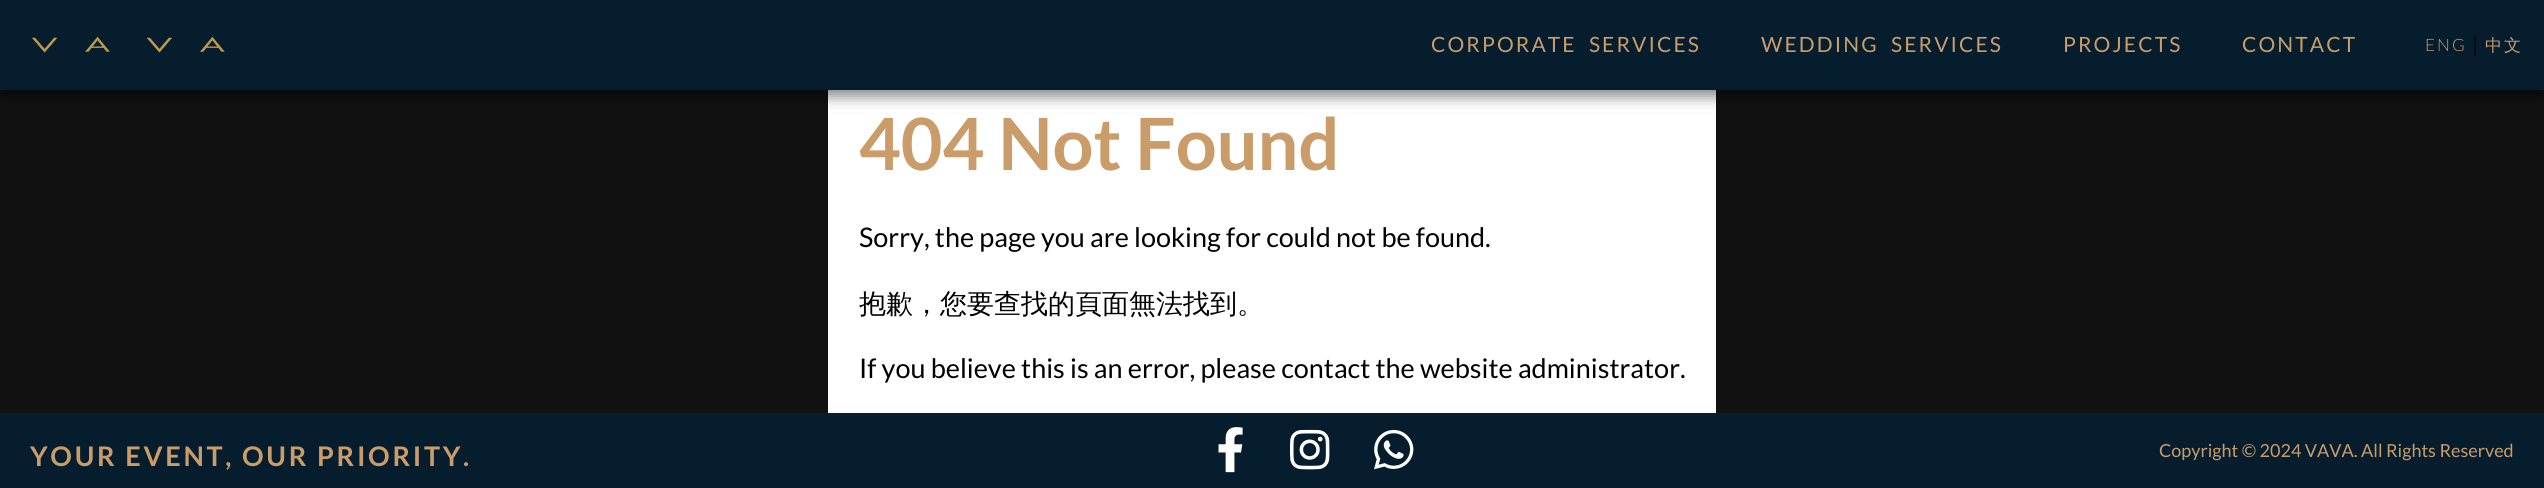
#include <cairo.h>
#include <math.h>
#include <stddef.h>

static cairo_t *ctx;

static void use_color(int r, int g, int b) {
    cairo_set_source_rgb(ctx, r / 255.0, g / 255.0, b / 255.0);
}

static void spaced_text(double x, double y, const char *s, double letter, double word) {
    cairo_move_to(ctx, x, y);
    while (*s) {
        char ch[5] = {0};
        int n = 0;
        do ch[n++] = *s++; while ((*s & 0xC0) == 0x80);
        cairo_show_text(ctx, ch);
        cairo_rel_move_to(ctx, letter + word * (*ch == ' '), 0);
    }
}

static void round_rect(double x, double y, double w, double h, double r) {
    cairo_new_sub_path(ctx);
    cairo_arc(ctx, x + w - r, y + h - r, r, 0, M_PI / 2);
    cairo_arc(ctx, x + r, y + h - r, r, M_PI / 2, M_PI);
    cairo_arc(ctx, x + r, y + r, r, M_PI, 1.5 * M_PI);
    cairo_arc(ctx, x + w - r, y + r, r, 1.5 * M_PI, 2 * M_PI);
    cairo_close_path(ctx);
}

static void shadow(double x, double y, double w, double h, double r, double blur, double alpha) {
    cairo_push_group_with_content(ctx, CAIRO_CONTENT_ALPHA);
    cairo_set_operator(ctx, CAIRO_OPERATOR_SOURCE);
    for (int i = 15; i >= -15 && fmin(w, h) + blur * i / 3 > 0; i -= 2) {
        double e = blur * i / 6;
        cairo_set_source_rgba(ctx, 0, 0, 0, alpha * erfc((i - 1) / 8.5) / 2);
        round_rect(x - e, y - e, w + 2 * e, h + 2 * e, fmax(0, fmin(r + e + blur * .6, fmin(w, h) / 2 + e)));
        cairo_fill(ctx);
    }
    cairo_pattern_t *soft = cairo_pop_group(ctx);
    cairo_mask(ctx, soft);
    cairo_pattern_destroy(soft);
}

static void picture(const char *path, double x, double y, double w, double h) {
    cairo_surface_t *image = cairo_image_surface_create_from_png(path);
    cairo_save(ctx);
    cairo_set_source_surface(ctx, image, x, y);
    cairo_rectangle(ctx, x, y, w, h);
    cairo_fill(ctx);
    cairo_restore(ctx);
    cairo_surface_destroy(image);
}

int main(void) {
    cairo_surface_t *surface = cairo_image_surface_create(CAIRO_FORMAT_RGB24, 2544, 488);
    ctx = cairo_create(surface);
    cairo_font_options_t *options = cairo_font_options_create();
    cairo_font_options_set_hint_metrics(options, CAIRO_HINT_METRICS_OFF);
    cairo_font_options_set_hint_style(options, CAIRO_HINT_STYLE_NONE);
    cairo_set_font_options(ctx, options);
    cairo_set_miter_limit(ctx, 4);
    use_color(17, 17, 17);
    cairo_paint(ctx);
    use_color(255, 255, 255);
    cairo_rectangle(ctx, 828, 90, 888, 323);
    cairo_fill(ctx);
    use_color(0, 0, 0);
    shadow(0, 6, 2544, 90, 0, 7.5, 0.5);
    use_color(6, 29, 45);
    cairo_rectangle(ctx, 0, 0, 2544, 90);
    cairo_fill(ctx);
    picture("img1.png", 32, 36, 193, 17);
    cairo_select_font_face(ctx, "Lato", CAIRO_FONT_SLANT_NORMAL, CAIRO_FONT_WEIGHT_NORMAL);
    cairo_set_font_size(ctx, 21);
    use_color(202, 156, 106);
    spaced_text(1431, 52, "CORPORATE  SERVICES", 2.1, 0);
    spaced_text(1761, 52, "WEDDING  SERVICES", 2.1, 0);
    spaced_text(2063, 52, "PROJECTS", 2.1, 0);
    spaced_text(2242, 52, "CONTACT", 2.1, 0);
    cairo_select_font_face(ctx, "Lato Light", CAIRO_FONT_SLANT_NORMAL, CAIRO_FONT_WEIGHT_NORMAL);
    cairo_set_font_size(ctx, 17);
    spaced_text(2425, 51, "ENG", 2, 0);
    cairo_select_font_face(ctx, "Quicksand", CAIRO_FONT_SLANT_NORMAL, CAIRO_FONT_WEIGHT_NORMAL);
    cairo_set_font_size(ctx, 21);
    use_color(0, 0, 0);
    cairo_move_to(ctx, 2473, 52);
    cairo_show_text(ctx, "|");
    cairo_select_font_face(ctx, "WenQuanYi Zen Hei Medium", CAIRO_FONT_SLANT_NORMAL, CAIRO_FONT_WEIGHT_NORMAL);
    cairo_set_font_size(ctx, 17);
    use_color(202, 156, 106);
    spaced_text(2485, 51, "中文", 2, 0);
    cairo_select_font_face(ctx, "Lato", CAIRO_FONT_SLANT_NORMAL, CAIRO_FONT_WEIGHT_BOLD);
    cairo_set_font_size(ctx, 72);
    cairo_move_to(ctx, 859, 170);
    cairo_show_text(ctx, "404 Not Found");
    cairo_select_font_face(ctx, "Lato", CAIRO_FONT_SLANT_NORMAL, CAIRO_FONT_WEIGHT_NORMAL);
    cairo_set_font_size(ctx, 27);
    use_color(0, 0, 0);
    cairo_move_to(ctx, 859, 247);
    cairo_show_text(ctx, "Sorry, the page you are looking for could not be found.");
    cairo_select_font_face(ctx, "WenQuanYi Zen Hei Medium", CAIRO_FONT_SLANT_NORMAL, CAIRO_FONT_WEIGHT_NORMAL);
    cairo_move_to(ctx, 859, 313);
    cairo_show_text(ctx, "抱歉，您要查找的頁面無法找到。");
    cairo_select_font_face(ctx, "Lato", CAIRO_FONT_SLANT_NORMAL, CAIRO_FONT_WEIGHT_NORMAL);
    cairo_move_to(ctx, 859, 378);
    cairo_show_text(ctx, "If you believe this is an error, please contact the website administrator.");
    use_color(6, 29, 45);
    cairo_rectangle(ctx, 0, 413, 2544, 75);
    cairo_fill(ctx);
    cairo_select_font_face(ctx, "Lato", CAIRO_FONT_SLANT_NORMAL, CAIRO_FONT_WEIGHT_BOLD);
    use_color(202, 156, 106);
    spaced_text(30, 466, "YOUR EVENT, OUR PRIORITY.", 2.7, 0);
    picture("img2.png", 1218, 427, 25, 46);
    picture("img3.png", 1290, 429, 40, 41);
    picture("img4.png", 1374, 429, 40, 41);
    cairo_select_font_face(ctx, "Lato", CAIRO_FONT_SLANT_NORMAL, CAIRO_FONT_WEIGHT_NORMAL);
    cairo_set_font_size(ctx, 18);
    cairo_move_to(ctx, 2159, 457);
    cairo_show_text(ctx, "Copyright © 2024 VAVA. All Rights Reserved");
    cairo_surface_write_to_png(surface, "result.png");
    cairo_font_options_destroy(options);
    cairo_destroy(ctx);
    cairo_surface_destroy(surface);
    return 0;
}
